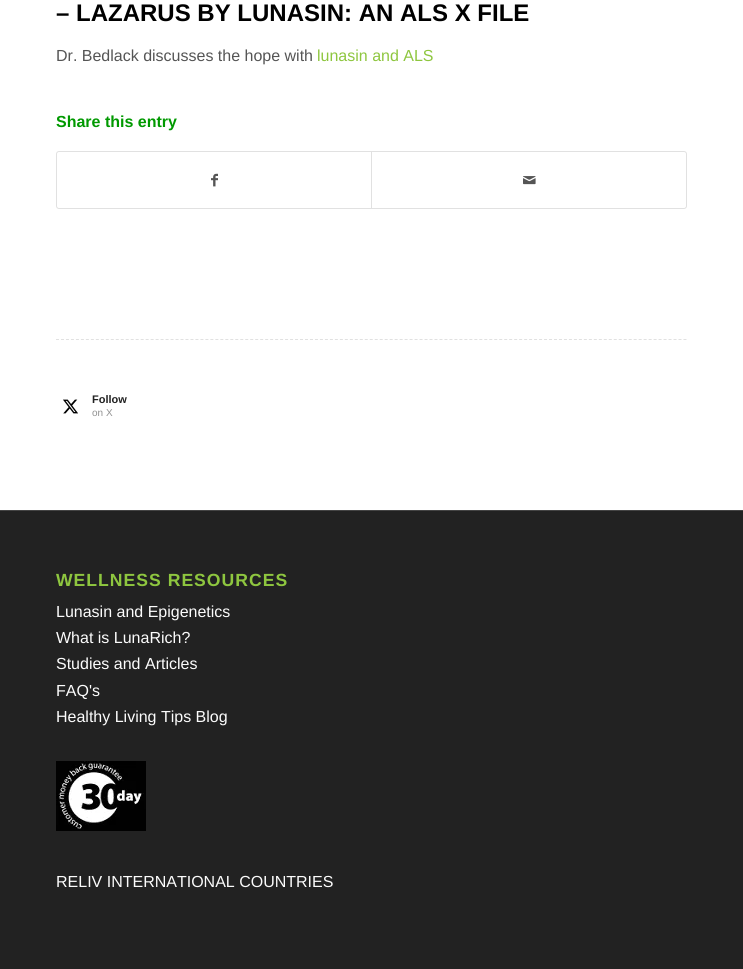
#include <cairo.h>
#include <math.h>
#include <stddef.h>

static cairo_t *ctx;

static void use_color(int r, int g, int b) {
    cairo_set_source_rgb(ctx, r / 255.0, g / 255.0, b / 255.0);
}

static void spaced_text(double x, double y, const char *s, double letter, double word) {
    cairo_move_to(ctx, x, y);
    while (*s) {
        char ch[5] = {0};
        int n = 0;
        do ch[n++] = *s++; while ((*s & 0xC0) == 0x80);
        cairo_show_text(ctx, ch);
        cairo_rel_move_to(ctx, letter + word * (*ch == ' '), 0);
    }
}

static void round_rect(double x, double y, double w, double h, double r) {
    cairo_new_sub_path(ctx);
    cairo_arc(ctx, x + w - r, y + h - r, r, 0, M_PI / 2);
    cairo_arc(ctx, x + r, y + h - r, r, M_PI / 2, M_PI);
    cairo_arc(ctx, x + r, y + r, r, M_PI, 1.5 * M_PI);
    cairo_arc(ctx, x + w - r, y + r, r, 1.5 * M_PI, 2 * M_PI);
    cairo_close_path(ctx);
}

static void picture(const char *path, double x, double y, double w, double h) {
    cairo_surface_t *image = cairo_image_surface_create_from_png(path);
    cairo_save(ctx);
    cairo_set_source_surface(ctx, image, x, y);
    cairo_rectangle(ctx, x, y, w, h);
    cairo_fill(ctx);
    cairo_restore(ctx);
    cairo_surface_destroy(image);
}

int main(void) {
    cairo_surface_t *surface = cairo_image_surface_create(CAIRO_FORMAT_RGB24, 743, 969);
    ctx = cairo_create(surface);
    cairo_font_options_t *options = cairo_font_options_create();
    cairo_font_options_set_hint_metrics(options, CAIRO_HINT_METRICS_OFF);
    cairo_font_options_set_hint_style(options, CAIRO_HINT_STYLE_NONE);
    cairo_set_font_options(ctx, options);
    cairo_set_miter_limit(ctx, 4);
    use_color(255, 255, 255);
    cairo_paint(ctx);
    cairo_select_font_face(ctx, "Liberation Sans", CAIRO_FONT_SLANT_NORMAL, CAIRO_FONT_WEIGHT_BOLD);
    cairo_set_font_size(ctx, 24);
    use_color(0, 0, 0);
    cairo_move_to(ctx, 56, 21);
    cairo_show_text(ctx, "– LAZARUS BY LUNASIN: AN ALS X FILE");
    cairo_select_font_face(ctx, "Liberation Sans", CAIRO_FONT_SLANT_NORMAL, CAIRO_FONT_WEIGHT_NORMAL);
    cairo_set_font_size(ctx, 16);
    use_color(85, 85, 85);
    cairo_move_to(ctx, 56, 61);
    cairo_show_text(ctx, "Dr. Bedlack discusses the hope with");
    use_color(142, 198, 63);
    cairo_move_to(ctx, 317, 61);
    cairo_show_text(ctx, "lunasin and ALS");
    cairo_select_font_face(ctx, "Liberation Sans", CAIRO_FONT_SLANT_NORMAL, CAIRO_FONT_WEIGHT_BOLD);
    use_color(0, 153, 0);
    cairo_move_to(ctx, 56, 127);
    cairo_show_text(ctx, "Share this entry");
    round_rect(56.5, 151.5, 630, 57, 2.5);
    use_color(225, 225, 225);
    cairo_set_line_width(ctx, 1);
    cairo_stroke(ctx);
    picture("img1.png", 211, 173, 7, 14);
    cairo_rectangle(ctx, 371, 152, 1, 56);
    cairo_fill(ctx);
    picture("img2.png", 523, 176, 13, 9);
    cairo_new_path(ctx);
    cairo_move_to(ctx, 56, 339.5);
    cairo_line_to(ctx, 687, 339.5);
    cairo_set_dash(ctx, (double[]){3, 1.98}, 2, 0);
    cairo_stroke(ctx);
    picture("img3.png", 63, 399, 15, 15);
    cairo_set_font_size(ctx, 11);
    use_color(34, 34, 34);
    cairo_move_to(ctx, 92, 403);
    cairo_show_text(ctx, "Follow");
    cairo_select_font_face(ctx, "Liberation Sans", CAIRO_FONT_SLANT_NORMAL, CAIRO_FONT_WEIGHT_NORMAL);
    cairo_set_font_size(ctx, 10);
    use_color(145, 145, 145);
    cairo_move_to(ctx, 92, 416);
    cairo_show_text(ctx, "on X");
    use_color(34, 34, 34);
    cairo_rectangle(ctx, 0, 511, 743, 458);
    cairo_fill(ctx);
    use_color(68, 68, 68);
    cairo_rectangle(ctx, 0, 510, 743, 1);
    cairo_fill(ctx);
    cairo_select_font_face(ctx, "Liberation Sans", CAIRO_FONT_SLANT_NORMAL, CAIRO_FONT_WEIGHT_BOLD);
    cairo_set_font_size(ctx, 17.6);
    use_color(142, 198, 63);
    spaced_text(56, 586, "WELLNESS RESOURCES", 1, 0);
    cairo_select_font_face(ctx, "Liberation Sans", CAIRO_FONT_SLANT_NORMAL, CAIRO_FONT_WEIGHT_NORMAL);
    cairo_set_font_size(ctx, 16);
    use_color(252, 252, 252);
    cairo_move_to(ctx, 56, 617);
    cairo_show_text(ctx, "Lunasin and Epigenetics");
    cairo_move_to(ctx, 56, 643);
    cairo_show_text(ctx, "What is LunaRich?");
    cairo_move_to(ctx, 56, 669);
    cairo_show_text(ctx, "Studies and Articles");
    cairo_move_to(ctx, 56, 696);
    cairo_show_text(ctx, "FAQ's");
    cairo_move_to(ctx, 56, 722);
    cairo_show_text(ctx, "Healthy Living Tips Blog");
    picture("img4.png", 56, 761, 90, 70);
    cairo_move_to(ctx, 56, 887);
    cairo_show_text(ctx, "RELIV INTERNATIONAL COUNTRIES");
    cairo_surface_write_to_png(surface, "result.png");
    cairo_font_options_destroy(options);
    cairo_destroy(ctx);
    cairo_surface_destroy(surface);
    return 0;
}
